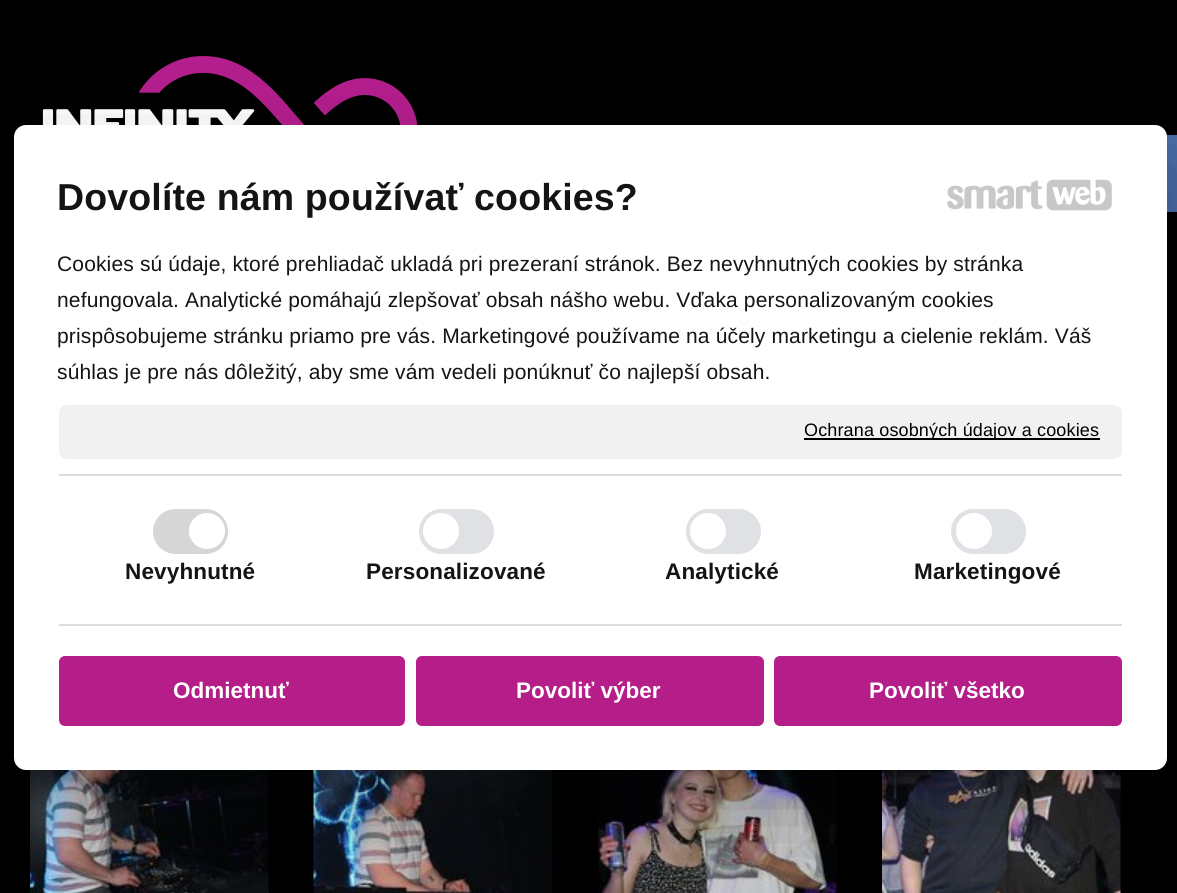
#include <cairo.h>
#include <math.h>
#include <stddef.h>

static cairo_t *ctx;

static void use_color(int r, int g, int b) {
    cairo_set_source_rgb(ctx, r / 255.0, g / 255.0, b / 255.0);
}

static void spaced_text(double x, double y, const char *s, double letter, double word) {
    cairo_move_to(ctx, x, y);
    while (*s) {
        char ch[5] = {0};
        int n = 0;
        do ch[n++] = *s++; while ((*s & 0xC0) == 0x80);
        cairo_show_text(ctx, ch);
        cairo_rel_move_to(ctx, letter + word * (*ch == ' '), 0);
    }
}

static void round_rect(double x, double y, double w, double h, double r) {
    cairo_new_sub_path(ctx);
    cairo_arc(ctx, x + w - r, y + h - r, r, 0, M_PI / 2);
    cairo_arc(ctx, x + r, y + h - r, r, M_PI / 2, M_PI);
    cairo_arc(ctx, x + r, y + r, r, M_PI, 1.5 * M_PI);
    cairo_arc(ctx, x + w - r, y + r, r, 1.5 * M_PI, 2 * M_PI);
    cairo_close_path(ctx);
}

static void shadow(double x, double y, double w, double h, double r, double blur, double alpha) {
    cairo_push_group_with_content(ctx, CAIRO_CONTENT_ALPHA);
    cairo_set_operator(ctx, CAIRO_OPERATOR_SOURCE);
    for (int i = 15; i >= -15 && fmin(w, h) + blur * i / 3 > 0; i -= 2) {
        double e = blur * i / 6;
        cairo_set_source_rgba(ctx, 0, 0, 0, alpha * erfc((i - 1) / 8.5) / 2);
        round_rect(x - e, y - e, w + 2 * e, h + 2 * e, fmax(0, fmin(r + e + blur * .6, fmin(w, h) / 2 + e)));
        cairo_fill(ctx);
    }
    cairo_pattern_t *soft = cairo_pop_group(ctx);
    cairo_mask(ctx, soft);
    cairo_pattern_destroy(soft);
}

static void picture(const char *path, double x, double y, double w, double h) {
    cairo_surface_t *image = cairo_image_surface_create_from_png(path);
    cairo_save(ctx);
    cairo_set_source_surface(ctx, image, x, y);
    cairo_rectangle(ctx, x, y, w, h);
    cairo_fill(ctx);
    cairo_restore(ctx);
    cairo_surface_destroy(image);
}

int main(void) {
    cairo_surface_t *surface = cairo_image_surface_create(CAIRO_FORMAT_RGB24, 1177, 893);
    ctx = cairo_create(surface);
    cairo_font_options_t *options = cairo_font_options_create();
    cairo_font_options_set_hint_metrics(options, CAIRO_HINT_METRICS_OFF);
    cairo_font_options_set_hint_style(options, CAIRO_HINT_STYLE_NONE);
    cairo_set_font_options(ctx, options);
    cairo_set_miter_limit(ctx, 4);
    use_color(0, 0, 0);
    cairo_paint(ctx);
    picture("img1.png", 1166, 135, 11, 77);
    picture("img2.png", 42, 56, 376, 69);
    picture("img5.png", 30, 770, 239, 123);
    picture("img6.png", 313, 770, 239, 123);
    picture("img7.png", 598, 770, 239, 123);
    picture("img8.png", 882, 770, 239, 123);
    shadow(14, 173, 1153, 645, 12, 51, 0.3);
    use_color(255, 255, 255);
    round_rect(14, 125, 1153, 645, 12);
    cairo_fill(ctx);
    cairo_select_font_face(ctx, "Liberation Sans", CAIRO_FONT_SLANT_NORMAL, CAIRO_FONT_WEIGHT_BOLD);
    cairo_set_font_size(ctx, 37.5);
    use_color(20, 20, 20);
    spaced_text(57, 210, "Dovolíte nám používať cookies?", 0.15, 0);
    picture("img3.png", 947, 180, 96, 30);
    picture("img4.png", 1046, 179, 66, 32);
    cairo_select_font_face(ctx, "Liberation Sans", CAIRO_FONT_SLANT_NORMAL, CAIRO_FONT_WEIGHT_NORMAL);
    cairo_set_font_size(ctx, 21);
    spaced_text(57, 271, "Cookies sú údaje, ktoré prehliadač ukladá pri prezeraní stránok. Bez nevyhnutných cookies by stránka", 0.15, 0);
    spaced_text(57, 307, "nefungovala. Analytické pomáhajú zlepšovať obsah nášho webu. Vďaka personalizovaným cookies", 0.15, 0);
    spaced_text(57, 343, "prispôsobujeme stránku priamo pre vás. Marketingové používame na účely marketingu a cielenie reklám. Váš", 0.15, 0);
    spaced_text(57, 379, "súhlas je pre nás dôležitý, aby sme vám vedeli ponúknuť čo najlepší obsah.", 0.15, 0);
    use_color(241, 241, 241);
    round_rect(59, 405, 1063, 54, 8);
    cairo_fill(ctx);
    use_color(0, 0, 0);
    cairo_rectangle(ctx, 804, 438, 296, 2);
    cairo_fill(ctx);
    cairo_set_font_size(ctx, 18);
    spaced_text(804, 436, "Ochrana osobných údajov a cookies", 0.15, 0);
    use_color(221, 221, 221);
    cairo_rectangle(ctx, 59, 474, 1063, 2);
    cairo_fill(ctx);
    cairo_rectangle(ctx, 59, 624, 1063, 2);
    cairo_fill(ctx);
    use_color(214, 214, 214);
    round_rect(153, 509, 75, 45, 22.5);
    cairo_fill(ctx);
    use_color(255, 255, 255);
    cairo_arc(ctx, 207, 531, 18, 0, 2 * M_PI);
    cairo_fill(ctx);
    cairo_select_font_face(ctx, "Liberation Sans", CAIRO_FONT_SLANT_NORMAL, CAIRO_FONT_WEIGHT_BOLD);
    cairo_set_font_size(ctx, 22.5);
    use_color(20, 20, 20);
    spaced_text(125, 579, "Nevyhnutné", 0.15, 0);
    use_color(223, 225, 228);
    round_rect(419, 509, 75, 45, 22.5);
    cairo_fill(ctx);
    use_color(255, 255, 255);
    cairo_arc(ctx, 441, 531, 18, 0, 2 * M_PI);
    cairo_fill(ctx);
    use_color(20, 20, 20);
    spaced_text(366, 579, "Personalizované", 0.15, 0);
    use_color(223, 225, 228);
    round_rect(686, 509, 75, 45, 22.5);
    cairo_fill(ctx);
    use_color(255, 255, 255);
    cairo_arc(ctx, 708, 531, 18, 0, 2 * M_PI);
    cairo_fill(ctx);
    use_color(20, 20, 20);
    spaced_text(665, 579, "Analytické", 0.15, 0);
    use_color(223, 225, 228);
    round_rect(951, 509, 75, 45, 22.5);
    cairo_fill(ctx);
    use_color(255, 255, 255);
    cairo_arc(ctx, 974, 531, 18, 0, 2 * M_PI);
    cairo_fill(ctx);
    use_color(20, 20, 20);
    spaced_text(914, 579, "Marketingové", 0.15, 0);
    use_color(181, 30, 137);
    round_rect(59, 656, 346, 70, 6);
    cairo_fill(ctx);
    use_color(255, 255, 255);
    cairo_move_to(ctx, 173, 698);
    cairo_show_text(ctx, "Odmietnuť");
    use_color(181, 30, 137);
    round_rect(416, 656, 348, 70, 6);
    cairo_fill(ctx);
    use_color(255, 255, 255);
    cairo_move_to(ctx, 516, 698);
    cairo_show_text(ctx, "Povoliť výber");
    use_color(181, 30, 137);
    round_rect(774, 656, 348, 70, 6);
    cairo_fill(ctx);
    use_color(255, 255, 255);
    cairo_move_to(ctx, 869, 698);
    cairo_show_text(ctx, "Povoliť všetko");
    cairo_surface_write_to_png(surface, "result.png");
    cairo_font_options_destroy(options);
    cairo_destroy(ctx);
    cairo_surface_destroy(surface);
    return 0;
}
